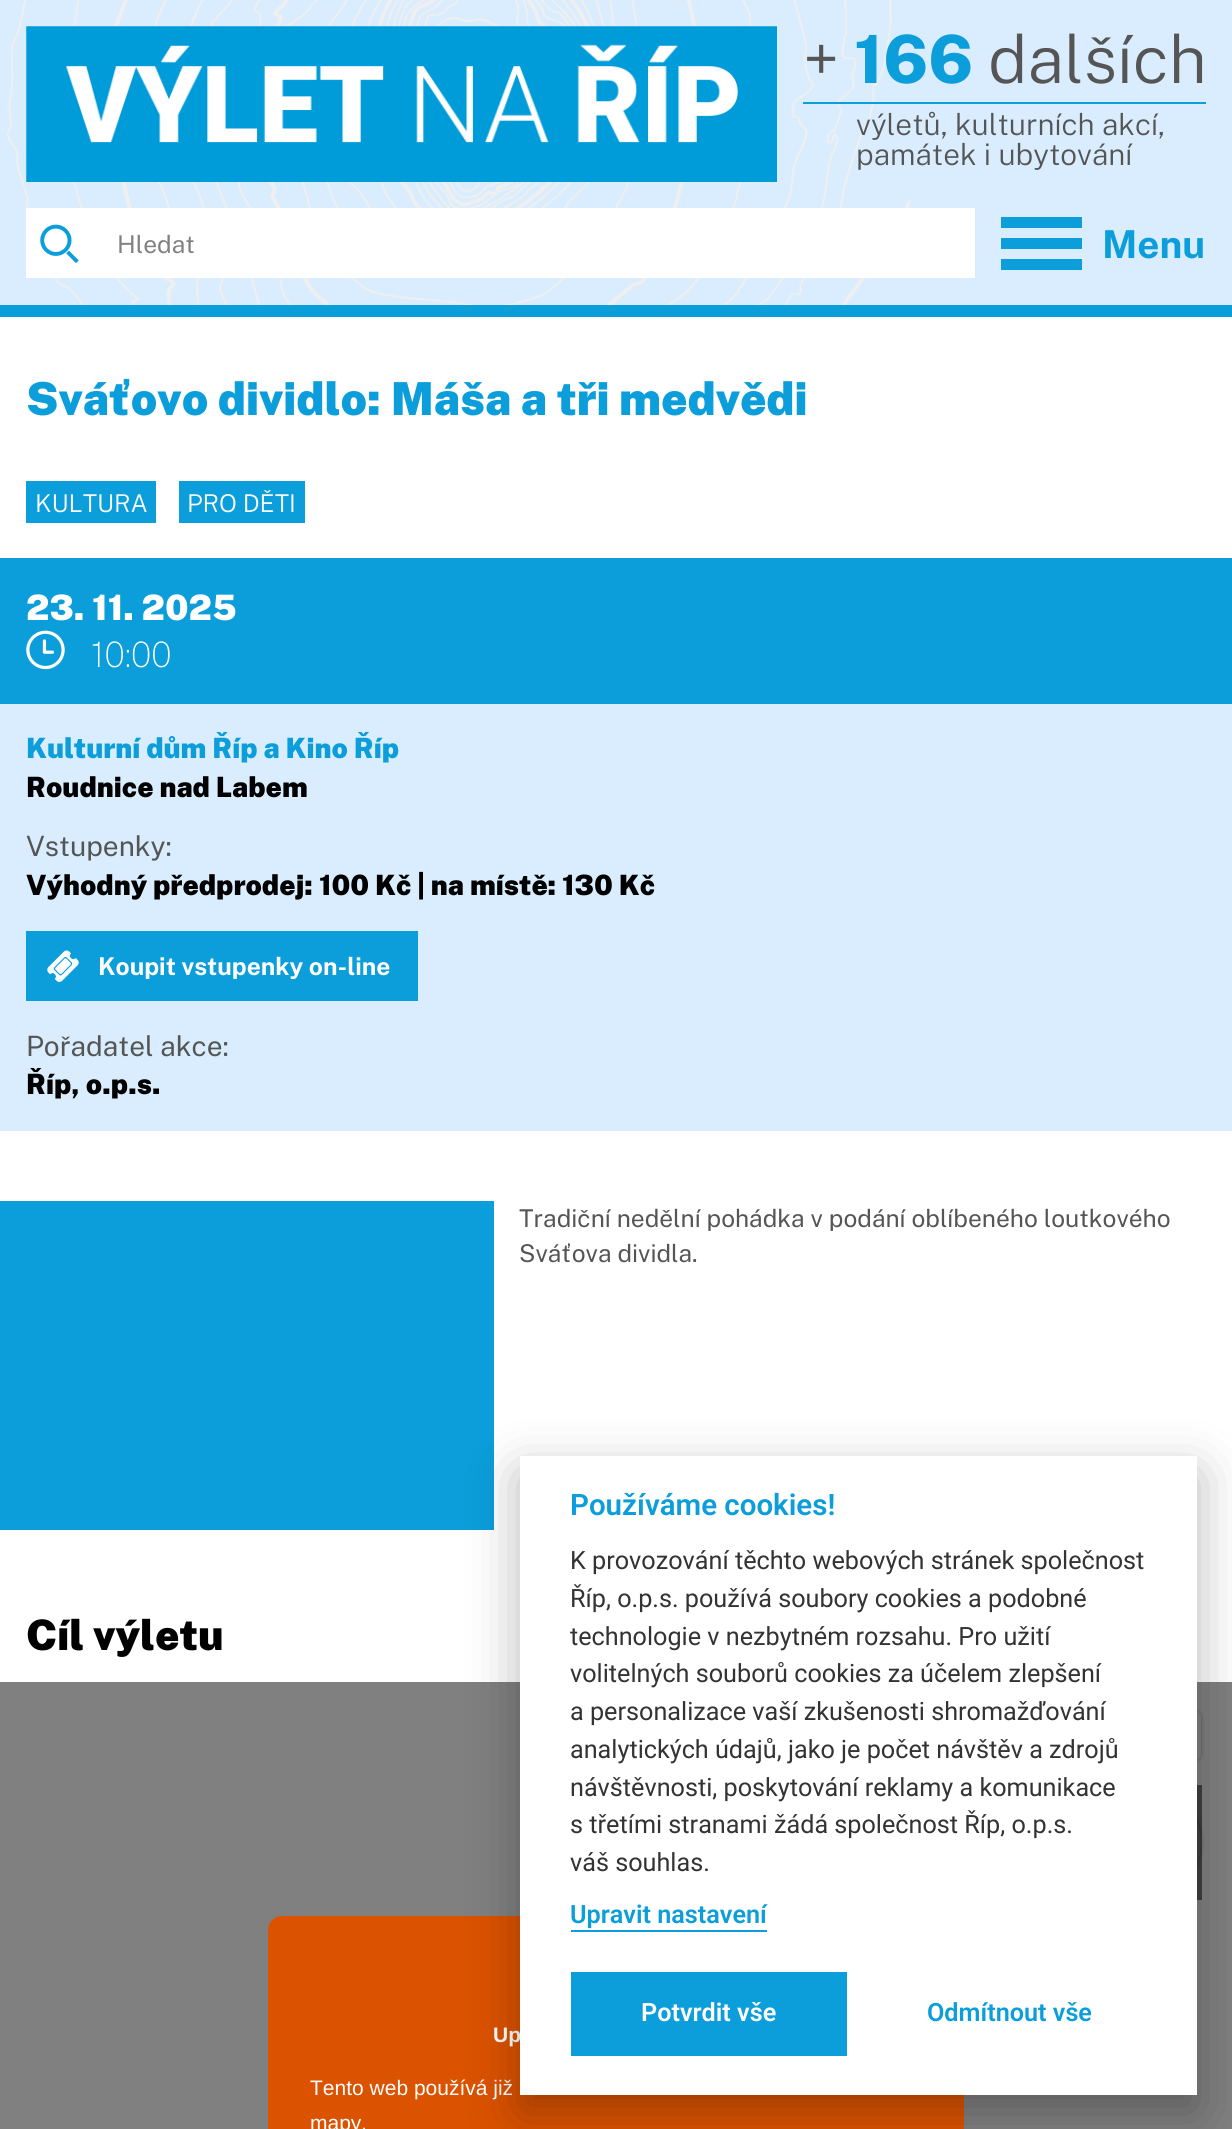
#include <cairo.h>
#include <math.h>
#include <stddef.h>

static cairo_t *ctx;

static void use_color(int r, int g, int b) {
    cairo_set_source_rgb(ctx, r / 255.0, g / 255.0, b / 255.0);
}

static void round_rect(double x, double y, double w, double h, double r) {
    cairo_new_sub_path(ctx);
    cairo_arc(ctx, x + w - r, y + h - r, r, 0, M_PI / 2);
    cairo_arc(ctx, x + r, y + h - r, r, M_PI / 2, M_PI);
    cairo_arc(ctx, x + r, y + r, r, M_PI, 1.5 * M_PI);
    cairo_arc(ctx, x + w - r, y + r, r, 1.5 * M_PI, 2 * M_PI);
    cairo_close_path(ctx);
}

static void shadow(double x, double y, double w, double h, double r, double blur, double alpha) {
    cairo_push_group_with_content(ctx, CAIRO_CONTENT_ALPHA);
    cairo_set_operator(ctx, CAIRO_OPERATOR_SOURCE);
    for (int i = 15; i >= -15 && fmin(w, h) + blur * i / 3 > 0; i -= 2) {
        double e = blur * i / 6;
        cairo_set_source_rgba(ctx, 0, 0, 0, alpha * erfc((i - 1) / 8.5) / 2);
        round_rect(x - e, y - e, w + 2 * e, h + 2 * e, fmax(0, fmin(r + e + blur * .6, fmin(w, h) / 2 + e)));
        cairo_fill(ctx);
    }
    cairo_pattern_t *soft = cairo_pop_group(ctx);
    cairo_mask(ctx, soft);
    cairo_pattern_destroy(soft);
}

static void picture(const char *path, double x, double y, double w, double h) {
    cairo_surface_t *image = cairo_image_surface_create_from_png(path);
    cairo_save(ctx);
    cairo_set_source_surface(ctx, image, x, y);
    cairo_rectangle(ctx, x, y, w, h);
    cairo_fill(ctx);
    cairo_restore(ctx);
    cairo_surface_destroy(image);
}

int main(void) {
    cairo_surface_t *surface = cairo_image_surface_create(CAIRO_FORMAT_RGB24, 1232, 2129);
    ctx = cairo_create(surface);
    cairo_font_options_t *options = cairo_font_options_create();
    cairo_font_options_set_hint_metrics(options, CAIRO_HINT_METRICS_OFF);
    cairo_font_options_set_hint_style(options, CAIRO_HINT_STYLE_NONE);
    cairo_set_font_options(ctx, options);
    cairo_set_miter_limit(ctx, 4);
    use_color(255, 255, 255);
    cairo_paint(ctx);
    use_color(128, 128, 128);
    cairo_rectangle(ctx, 0, 1682, 1232, 447);
    cairo_fill(ctx);
    use_color(217, 237, 254);
    cairo_rectangle(ctx, 0, 0, 1232, 305);
    cairo_fill(ctx);
    picture("img1.png", 7, 0, 903, 305);
    use_color(11, 158, 219);
    cairo_rectangle(ctx, 0, 305, 1232, 12);
    cairo_fill(ctx);
    picture("img2.png", 26, 26, 751, 156);
    cairo_rectangle(ctx, 803, 102, 403, 2);
    cairo_fill(ctx);
    cairo_select_font_face(ctx, "Public Sans Light", CAIRO_FONT_SLANT_NORMAL, CAIRO_FONT_WEIGHT_NORMAL);
    cairo_set_font_size(ctx, 66.5);
    use_color(85, 85, 85);
    cairo_move_to(ctx, 803, 83);
    cairo_show_text(ctx, "+");
    cairo_select_font_face(ctx, "Public Sans ExtraBold", CAIRO_FONT_SLANT_NORMAL, CAIRO_FONT_WEIGHT_NORMAL);
    use_color(11, 158, 219);
    cairo_move_to(ctx, 854, 83);
    cairo_show_text(ctx, "166");
    cairo_select_font_face(ctx, "Public Sans Light", CAIRO_FONT_SLANT_NORMAL, CAIRO_FONT_WEIGHT_NORMAL);
    use_color(85, 85, 85);
    cairo_move_to(ctx, 988, 83);
    cairo_show_text(ctx, "dalších");
    cairo_set_font_size(ctx, 29.75);
    cairo_move_to(ctx, 856, 135);
    cairo_show_text(ctx, "výletů, kulturních akcí,");
    cairo_move_to(ctx, 856, 165);
    cairo_show_text(ctx, "památek i ubytování");
    use_color(255, 255, 255);
    cairo_rectangle(ctx, 26, 208, 949, 70);
    cairo_fill(ctx);
    picture("img3.png", 40, 224, 39, 39);
    cairo_select_font_face(ctx, "Public Sans", CAIRO_FONT_SLANT_NORMAL, CAIRO_FONT_WEIGHT_NORMAL);
    cairo_set_font_size(ctx, 24.5);
    use_color(128, 128, 128);
    cairo_move_to(ctx, 117, 253);
    cairo_show_text(ctx, "Hledat");
    use_color(11, 158, 219);
    cairo_rectangle(ctx, 1001, 217, 81, 11);
    cairo_fill(ctx);
    cairo_rectangle(ctx, 1001, 238, 81, 11);
    cairo_fill(ctx);
    cairo_rectangle(ctx, 1001, 259, 81, 11);
    cairo_fill(ctx);
    cairo_select_font_face(ctx, "Public Sans", CAIRO_FONT_SLANT_NORMAL, CAIRO_FONT_WEIGHT_BOLD);
    cairo_set_font_size(ctx, 38.5);
    cairo_move_to(ctx, 1102, 258);
    cairo_show_text(ctx, "Menu");
    cairo_select_font_face(ctx, "Public Sans Black", CAIRO_FONT_SLANT_NORMAL, CAIRO_FONT_WEIGHT_NORMAL);
    cairo_set_font_size(ctx, 45.5);
    cairo_move_to(ctx, 26, 415);
    cairo_show_text(ctx, "Sváťovo dividlo: Máša a tři medvědi");
    cairo_rectangle(ctx, 26, 481, 130, 42);
    cairo_fill(ctx);
    cairo_select_font_face(ctx, "Public Sans Light", CAIRO_FONT_SLANT_NORMAL, CAIRO_FONT_WEIGHT_NORMAL);
    cairo_set_font_size(ctx, 24.5);
    use_color(255, 255, 255);
    cairo_move_to(ctx, 35, 512);
    cairo_show_text(ctx, "KULTURA");
    use_color(11, 158, 219);
    cairo_rectangle(ctx, 179, 481, 126, 42);
    cairo_fill(ctx);
    use_color(255, 255, 255);
    cairo_move_to(ctx, 187, 512);
    cairo_show_text(ctx, "PRO DĚTI");
    use_color(11, 158, 219);
    cairo_rectangle(ctx, 0, 558, 1232, 146);
    cairo_fill(ctx);
    cairo_select_font_face(ctx, "Public Sans Black", CAIRO_FONT_SLANT_NORMAL, CAIRO_FONT_WEIGHT_NORMAL);
    cairo_set_font_size(ctx, 35);
    use_color(255, 255, 255);
    cairo_move_to(ctx, 26, 620);
    cairo_show_text(ctx, "23. 11. 2025");
    picture("img4.png", 26, 630, 39, 40);
    cairo_select_font_face(ctx, "Public Sans Thin", CAIRO_FONT_SLANT_NORMAL, CAIRO_FONT_WEIGHT_NORMAL);
    cairo_move_to(ctx, 91, 667);
    cairo_show_text(ctx, "10:00");
    use_color(217, 237, 254);
    cairo_rectangle(ctx, 0, 704, 1232, 427);
    cairo_fill(ctx);
    cairo_select_font_face(ctx, "Public Sans Black", CAIRO_FONT_SLANT_NORMAL, CAIRO_FONT_WEIGHT_NORMAL);
    cairo_set_font_size(ctx, 28);
    use_color(11, 158, 219);
    cairo_move_to(ctx, 26, 758);
    cairo_show_text(ctx, "Kulturní dům Říp a Kino Říp");
    use_color(0, 0, 0);
    cairo_move_to(ctx, 26, 797);
    cairo_show_text(ctx, "Roudnice nad Labem");
    cairo_select_font_face(ctx, "Public Sans", CAIRO_FONT_SLANT_NORMAL, CAIRO_FONT_WEIGHT_NORMAL);
    use_color(85, 85, 85);
    cairo_move_to(ctx, 26, 856);
    cairo_show_text(ctx, "Vstupenky:");
    cairo_select_font_face(ctx, "Public Sans Black", CAIRO_FONT_SLANT_NORMAL, CAIRO_FONT_WEIGHT_NORMAL);
    use_color(0, 0, 0);
    cairo_move_to(ctx, 26, 895);
    cairo_show_text(ctx, "Výhodný předprodej: 100 Kč | na místě: 130 Kč");
    use_color(11, 158, 219);
    cairo_rectangle(ctx, 26, 931, 392, 70);
    cairo_fill(ctx);
    picture("img5.png", 47, 950, 32, 32);
    cairo_select_font_face(ctx, "Public Sans", CAIRO_FONT_SLANT_NORMAL, CAIRO_FONT_WEIGHT_BOLD);
    cairo_set_font_size(ctx, 24.5);
    use_color(255, 255, 255);
    cairo_move_to(ctx, 98, 975);
    cairo_show_text(ctx, "Koupit vstupenky on-line");
    cairo_select_font_face(ctx, "Public Sans", CAIRO_FONT_SLANT_NORMAL, CAIRO_FONT_WEIGHT_NORMAL);
    cairo_set_font_size(ctx, 28);
    use_color(85, 85, 85);
    cairo_move_to(ctx, 26, 1056);
    cairo_show_text(ctx, "Pořadatel akce:");
    cairo_select_font_face(ctx, "Public Sans Black", CAIRO_FONT_SLANT_NORMAL, CAIRO_FONT_WEIGHT_NORMAL);
    use_color(0, 0, 0);
    cairo_move_to(ctx, 26, 1094);
    cairo_show_text(ctx, "Říp, o.p.s.");
    use_color(11, 158, 219);
    cairo_rectangle(ctx, 0, 1201, 494, 329);
    cairo_fill(ctx);
    cairo_select_font_face(ctx, "Public Sans", CAIRO_FONT_SLANT_NORMAL, CAIRO_FONT_WEIGHT_NORMAL);
    cairo_set_font_size(ctx, 24.5);
    use_color(85, 85, 85);
    cairo_move_to(ctx, 519, 1227);
    cairo_show_text(ctx, "Tradiční nedělní pohádka v podání oblíbeného loutkového");
    cairo_move_to(ctx, 519, 1262);
    cairo_show_text(ctx, "Sváťova dividla.");
    cairo_select_font_face(ctx, "Public Sans Black", CAIRO_FONT_SLANT_NORMAL, CAIRO_FONT_WEIGHT_NORMAL);
    cairo_set_font_size(ctx, 42);
    use_color(0, 0, 0);
    cairo_move_to(ctx, 26, 1650);
    cairo_show_text(ctx, "Cíl výletu");
    use_color(0, 0, 0);
    shadow(1090, 1712, 111, 47, 4, 2, 0.3);
    use_color(128, 128, 128);
    cairo_new_path(ctx);
    cairo_move_to(ctx, 1145, 1712);
    cairo_line_to(ctx, 1197, 1712);
    cairo_curve_to(ctx, 1199, 1712, 1201, 1714, 1201, 1716);
    cairo_line_to(ctx, 1201, 1755);
    cairo_curve_to(ctx, 1201, 1757, 1199, 1759, 1197, 1759);
    cairo_line_to(ctx, 1145, 1759);
    cairo_close_path(ctx);
    cairo_fill(ctx);
    use_color(0, 0, 0);
    shadow(1090, 1787, 111, 110, 55, 2, 0.3);
    use_color(128, 128, 128);
    round_rect(1090, 1787, 111, 110, 55);
    cairo_fill(ctx);
    picture("img6.png", 1197, 1785, 5, 115);
    use_color(219, 82, 0);
    round_rect(268, 1916, 696, 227, 14);
    cairo_fill(ctx);
    cairo_select_font_face(ctx, "Liberation Sans", CAIRO_FONT_SLANT_NORMAL, CAIRO_FONT_WEIGHT_BOLD);
    cairo_set_font_size(ctx, 21);
    use_color(255, 255, 255);
    cairo_move_to(ctx, 493, 2042);
    cairo_show_text(ctx, "Up");
    cairo_select_font_face(ctx, "Liberation Sans", CAIRO_FONT_SLANT_NORMAL, CAIRO_FONT_WEIGHT_NORMAL);
    cairo_move_to(ctx, 310, 2095);
    cairo_show_text(ctx, "Tento web používá již");
    cairo_move_to(ctx, 310, 2130);
    cairo_show_text(ctx, "mapy.");
    use_color(2, 2, 3);
    shadow(520, 1474, 677, 638, 0, 26, 0.28);
    use_color(255, 255, 255);
    cairo_rectangle(ctx, 520, 1456, 677, 639);
    cairo_fill(ctx);
    cairo_select_font_face(ctx, "Roboto SemiBold", CAIRO_FONT_SLANT_NORMAL, CAIRO_FONT_WEIGHT_NORMAL);
    cairo_set_font_size(ctx, 29.5);
    use_color(11, 158, 219);
    cairo_move_to(ctx, 570, 1515);
    cairo_show_text(ctx, "Používáme cookies!");
    cairo_select_font_face(ctx, "Roboto", CAIRO_FONT_SLANT_NORMAL, CAIRO_FONT_WEIGHT_NORMAL);
    cairo_set_font_size(ctx, 25.2);
    use_color(51, 51, 51);
    cairo_move_to(ctx, 570, 1569);
    cairo_show_text(ctx, "K provozování těchto webových stránek společnost");
    cairo_move_to(ctx, 570, 1607);
    cairo_show_text(ctx, "Říp, o.p.s. používá soubory cookies a podobné");
    cairo_move_to(ctx, 570, 1645);
    cairo_show_text(ctx, "technologie v nezbytném rozsahu. Pro užití");
    cairo_move_to(ctx, 570, 1682);
    cairo_show_text(ctx, "volitelných souborů cookies za účelem zlepšení");
    cairo_move_to(ctx, 570, 1720);
    cairo_show_text(ctx, "a personalizace vaší zkušenosti shromažďování");
    cairo_move_to(ctx, 570, 1758);
    cairo_show_text(ctx, "analytických údajů, jako je počet návštěv a zdrojů");
    cairo_move_to(ctx, 570, 1796);
    cairo_show_text(ctx, "návštěvnosti, poskytování reklamy a komunikace");
    cairo_move_to(ctx, 570, 1833);
    cairo_show_text(ctx, "s třetími stranami žádá společnost Říp, o.p.s.");
    cairo_move_to(ctx, 570, 1871);
    cairo_show_text(ctx, "váš souhlas.");
    cairo_select_font_face(ctx, "Roboto SemiBold", CAIRO_FONT_SLANT_NORMAL, CAIRO_FONT_WEIGHT_NORMAL);
    use_color(11, 158, 219);
    cairo_move_to(ctx, 570, 1923);
    cairo_show_text(ctx, "Upravit nastavení");
    cairo_rectangle(ctx, 571, 1930, 196, 2);
    cairo_fill(ctx);
    cairo_rectangle(ctx, 571, 1972, 276, 84);
    cairo_fill(ctx);
    use_color(255, 255, 255);
    cairo_move_to(ctx, 641, 2021);
    cairo_show_text(ctx, "Potvrdit vše");
    use_color(11, 158, 219);
    cairo_move_to(ctx, 927, 2021);
    cairo_show_text(ctx, "Odmítnout vše");
    cairo_surface_write_to_png(surface, "result.png");
    cairo_font_options_destroy(options);
    cairo_destroy(ctx);
    cairo_surface_destroy(surface);
    return 0;
}
